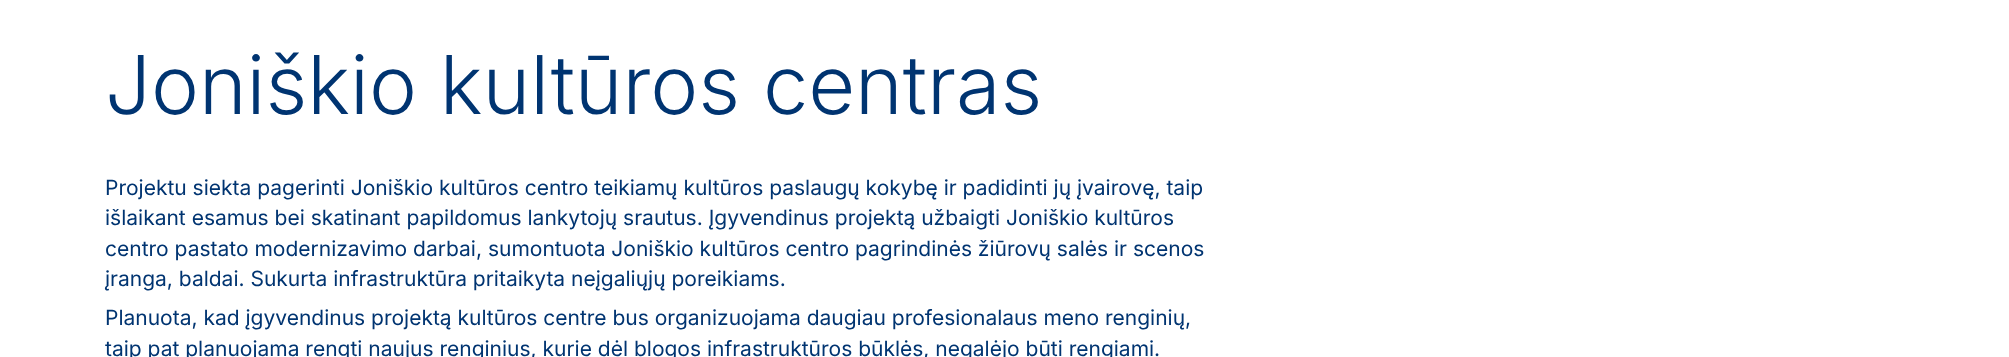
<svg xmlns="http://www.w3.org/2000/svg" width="2009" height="357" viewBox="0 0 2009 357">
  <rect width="100%" height="100%" fill="#ffffff"/>
  <text x="105" y="114" font-family="Inter" font-size="81" font-weight="300" fill="#003471">Joniškio kultūros centras</text>
  <text x="105" y="195" font-family="Inter" font-size="21" fill="#003471">Projektu siekta pagerinti Joniškio kultūros centro teikiamų kultūros paslaugų kokybę ir padidinti jų įvairovę, taip</text>
  <text x="105" y="225" font-family="Inter" font-size="21" fill="#003471">išlaikant esamus bei skatinant papildomus lankytojų srautus. Įgyvendinus projektą užbaigti Joniškio kultūros</text>
  <text x="105" y="256" font-family="Inter" font-size="21" fill="#003471">centro pastato modernizavimo darbai, sumontuota Joniškio kultūros centro pagrindinės žiūrovų salės ir scenos</text>
  <text x="105" y="286" font-family="Inter" font-size="21" fill="#003471">įranga, baldai. Sukurta infrastruktūra pritaikyta neįgaliųjų poreikiams.</text>
  <text x="105" y="325" font-family="Inter" font-size="21" fill="#003471">Planuota, kad įgyvendinus projektą kultūros centre bus organizuojama daugiau profesionalaus meno renginių,</text>
  <text x="105" y="356" font-family="Inter" font-size="21" fill="#003471">taip pat planuojama rengti naujus renginius, kurie dėl blogos infrastruktūros būklės, negalėjo būti rengiami.</text>
</svg>
